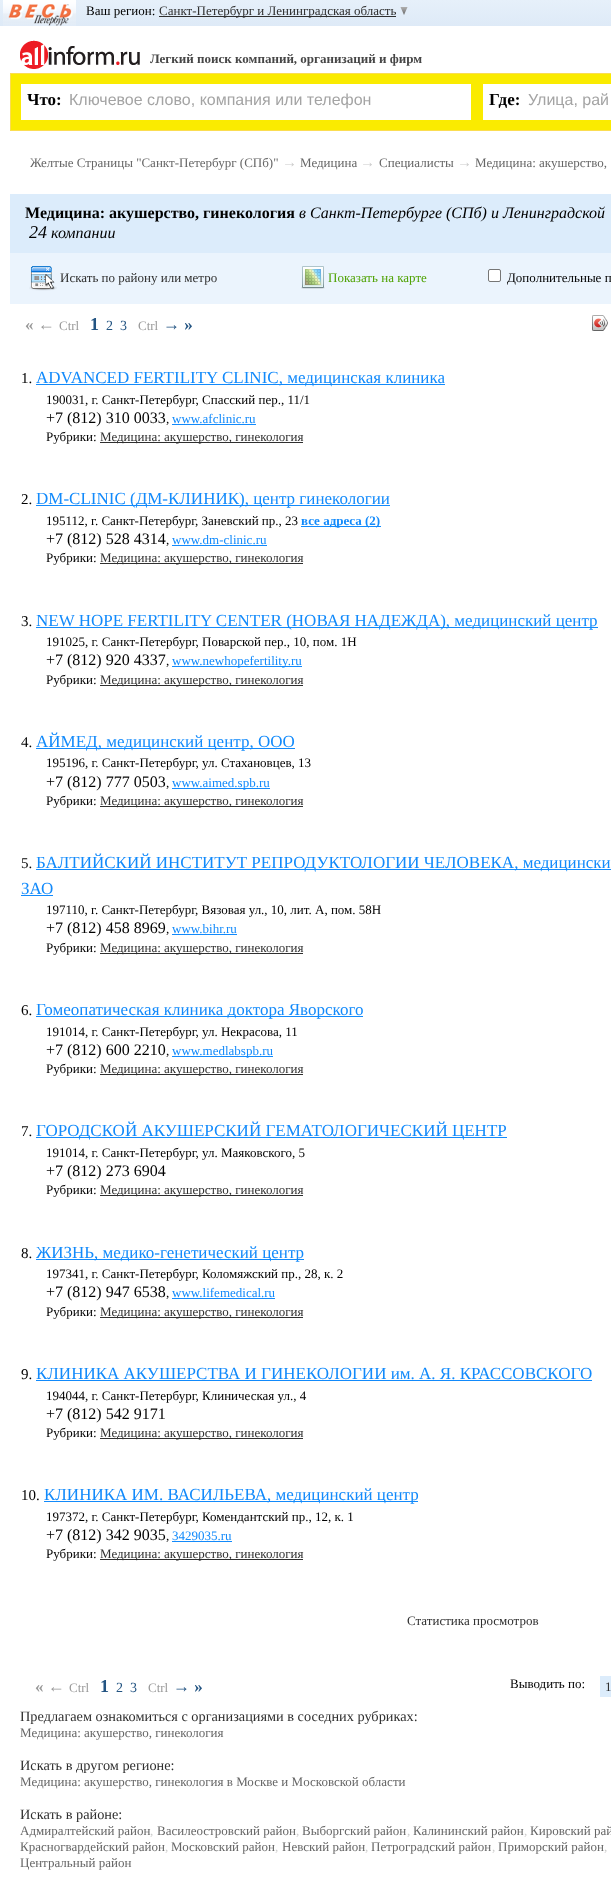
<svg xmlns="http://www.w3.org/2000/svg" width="611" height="1886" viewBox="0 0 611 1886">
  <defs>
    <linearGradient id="g1" gradientUnits="userSpaceOnUse" x1="518" y1="0" x2="518" y2="26"><stop offset="0" stop-color="#e6f0fa"/><stop offset="1" stop-color="#deeaf7"/></linearGradient>
  </defs>
  <rect width="100%" height="100%" fill="#ffffff"/>
  <rect x="0" y="0" width="611" height="26" fill="url(#g1)"/>
  <image x="3" y="0" width="73" height="26" href="img1.png"/>
  <text x="86" y="15" font-family="Liberation Serif" font-size="13" fill="#000000">Ваш регион:</text>
  <rect x="159" y="16" width="237" height="1" fill="#2f2f2f"/>
  <text x="159" y="15" font-family="Liberation Serif" font-size="13" fill="#2f2f2f">Санкт-Петербург и Ленинградская область</text>
  <image x="400" y="7" width="8" height="8" href="img2.png"/>
  <image x="20" y="40" width="120" height="29" href="img3.png"/>
  <text x="150" y="63" font-family="Liberation Serif" font-size="13" font-weight="bold" fill="#464646">Легкий поиск компаний, организаций и фирм</text>
  <rect x="10.5" y="73.5" width="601" height="57" fill="#faeb00" stroke="#fbdd51"/>
  <rect x="21" y="84" width="450" height="36" fill="#ffffff"/>
  <text x="27" y="105" font-family="Liberation Serif" font-size="17" font-weight="bold" fill="#000000">Что:</text>
  <text x="69" y="105" font-family="Liberation Sans" font-size="16" fill="#a4a4a4">Ключевое слово, компания или телефон</text>
  <rect x="483" y="84" width="128" height="36" fill="#ffffff"/>
  <text x="489" y="105" font-family="Liberation Serif" font-size="17" font-weight="bold" fill="#000000">Где:</text>
  <text x="528" y="105" font-family="Liberation Sans" font-size="16" fill="#a4a4a4">Улица, рай</text>
  <text x="30" y="167" font-family="Liberation Serif" font-size="13" fill="#666666">Желтые Страницы "Санкт-Петербург (СПб)"</text>
  <text x="282" y="167" font-family="Liberation Serif" font-size="15" fill="#cccccc">→</text>
  <text x="300" y="167" font-family="Liberation Serif" font-size="13" fill="#666666">Медицина</text>
  <text x="360" y="167" font-family="Liberation Serif" font-size="15" fill="#cccccc">→</text>
  <text x="379" y="167" font-family="Liberation Serif" font-size="13" fill="#666666">Специалисты</text>
  <text x="457" y="167" font-family="Liberation Serif" font-size="15" fill="#cccccc">→</text>
  <text x="475" y="167" font-family="Liberation Serif" font-size="13" fill="#666666">Медицина: акушерство,</text>
  <rect x="10" y="253" width="601" height="51" fill="#ebf4fd"/>
  <rect x="10" y="194" width="601" height="59" fill="#dcecfb"/>
  <text x="25" y="218" font-family="Liberation Serif" font-size="16" font-weight="bold" fill="#000000">Медицина: акушерство, гинекология</text>
  <text x="299" y="218" font-family="Liberation Serif" font-size="16" font-style="italic" fill="#000000">в Санкт-Петербурге (СПб) и Ленинградской</text>
  <text x="29" y="238" font-family="Liberation Serif" font-size="18" font-style="italic" fill="#000000">24</text>
  <text x="51" y="238" font-family="Liberation Serif" font-size="16" font-style="italic" fill="#000000">компании</text>
  <image x="29" y="266" width="28" height="25" href="img4.png"/>
  <text x="60" y="282" font-family="Liberation Serif" font-size="13" fill="#2f2f2f">Искать по району или метро</text>
  <image x="301" y="266" width="24" height="23" href="img5.png"/>
  <text x="328" y="282" font-family="Liberation Serif" font-size="13" fill="#4fa204">Показать на карте</text>
  <rect x="488.5" y="269.5" width="12" height="12" rx="1.5" fill="#ffffff" stroke="#767676"/>
  <text x="507" y="282" font-family="Liberation Serif" font-size="13" fill="#000000">Дополнительные п</text>
  <text x="25" y="330" font-family="Liberation Serif" font-size="17" font-weight="bold" fill="#999999">« ←</text>
  <text x="59" y="330" font-family="Liberation Serif" font-size="13" fill="#999999">Ctrl</text>
  <text x="90" y="330" font-family="Liberation Serif" font-size="18" font-weight="bold" fill="#235482">1</text>
  <text x="106" y="330" font-family="Liberation Serif" font-size="14" fill="#235482">2</text>
  <text x="120" y="330" font-family="Liberation Serif" font-size="14" fill="#235482">3</text>
  <text x="138" y="330" font-family="Liberation Serif" font-size="13" fill="#999999">Ctrl</text>
  <text x="163" y="330" font-family="Liberation Serif" font-size="17" font-weight="bold" fill="#235482">→ »</text>
  <image x="592" y="315" width="16" height="16" href="img6.png"/>
  <image x="592" y="315" width="16" height="16" href="img7.png"/>
  <text x="21" y="383" font-family="Liberation Serif" font-size="15" fill="#000000">1.</text>
  <rect x="36" y="384" width="409" height="1" fill="#128afb"/>
  <text x="36" y="383" font-family="Liberation Serif" font-size="17" fill="#128afb">ADVANCED FERTILITY CLINIC, медицинская клиника</text>
  <text x="46" y="404" font-family="Liberation Serif" font-size="13" fill="#000000">190031, г. Санкт-Петербург, Спасский пер., 11/1</text>
  <text x="46" y="423" font-family="Liberation Serif" font-size="16" fill="#000000">+7 (812) 310 0033</text>
  <text x="166" y="423" font-family="Liberation Serif" font-size="13" fill="#000000">,</text>
  <text x="172" y="423" font-family="Liberation Serif" font-size="13" fill="#128afb">www.afclinic.ru</text>
  <rect x="172" y="424" width="84" height="1" fill="#128afb"/>
  <text x="46" y="441" font-family="Liberation Serif" font-size="13" fill="#000000">Рубрики:</text>
  <rect x="100" y="442" width="203" height="1" fill="#2f2f2f"/>
  <text x="100" y="441" font-family="Liberation Serif" font-size="13" fill="#2f2f2f">Медицина: акушерство, гинекология</text>
  <text x="21" y="504" font-family="Liberation Serif" font-size="15" fill="#000000">2.</text>
  <rect x="36" y="505" width="354" height="1" fill="#128afb"/>
  <text x="36" y="504" font-family="Liberation Serif" font-size="17" fill="#128afb">DM-CLINIC (ДМ-КЛИНИК), центр гинекологии</text>
  <text x="46" y="525" font-family="Liberation Serif" font-size="13" fill="#000000">195112, г. Санкт-Петербург, Заневский пр., 23</text>
  <rect x="301" y="526" width="80" height="1" fill="#128afb"/>
  <text x="301" y="525" font-family="Liberation Serif" font-size="13" font-weight="bold" fill="#128afb">все адреса (2)</text>
  <text x="46" y="544" font-family="Liberation Serif" font-size="16" fill="#000000">+7 (812) 528 4314</text>
  <text x="166" y="544" font-family="Liberation Serif" font-size="13" fill="#000000">,</text>
  <text x="172" y="544" font-family="Liberation Serif" font-size="13" fill="#128afb">www.dm-clinic.ru</text>
  <rect x="172" y="545" width="95" height="1" fill="#128afb"/>
  <text x="46" y="562" font-family="Liberation Serif" font-size="13" fill="#000000">Рубрики:</text>
  <rect x="100" y="563" width="203" height="1" fill="#2f2f2f"/>
  <text x="100" y="562" font-family="Liberation Serif" font-size="13" fill="#2f2f2f">Медицина: акушерство, гинекология</text>
  <text x="21" y="626" font-family="Liberation Serif" font-size="15" fill="#000000">3.</text>
  <rect x="36" y="627" width="562" height="1" fill="#128afb"/>
  <text x="36" y="626" font-family="Liberation Serif" font-size="17" fill="#128afb">NEW HOPE FERTILITY CENTER (НОВАЯ НАДЕЖДА), медицинский центр</text>
  <text x="46" y="646" font-family="Liberation Serif" font-size="13" fill="#000000">191025, г. Санкт-Петербург, Поварской пер., 10, пом. 1Н</text>
  <text x="46" y="665" font-family="Liberation Serif" font-size="16" fill="#000000">+7 (812) 920 4337</text>
  <text x="166" y="665" font-family="Liberation Serif" font-size="13" fill="#000000">,</text>
  <rect x="172" y="666" width="130" height="1" fill="#128afb"/>
  <text x="172" y="665" font-family="Liberation Serif" font-size="13" fill="#128afb">www.newhopefertility.ru</text>
  <text x="46" y="684" font-family="Liberation Serif" font-size="13" fill="#000000">Рубрики:</text>
  <rect x="100" y="685" width="203" height="1" fill="#2f2f2f"/>
  <text x="100" y="684" font-family="Liberation Serif" font-size="13" fill="#2f2f2f">Медицина: акушерство, гинекология</text>
  <text x="21" y="747" font-family="Liberation Serif" font-size="15" fill="#000000">4.</text>
  <rect x="36" y="748" width="259" height="1" fill="#128afb"/>
  <text x="36" y="747" font-family="Liberation Serif" font-size="17" fill="#128afb">АЙМЕД, медицинский центр, ООО</text>
  <text x="46" y="767" font-family="Liberation Serif" font-size="13" fill="#000000">195196, г. Санкт-Петербург, ул. Стахановцев, 13</text>
  <text x="46" y="787" font-family="Liberation Serif" font-size="16" fill="#000000">+7 (812) 777 0503</text>
  <text x="166" y="787" font-family="Liberation Serif" font-size="13" fill="#000000">,</text>
  <rect x="172" y="788" width="98" height="1" fill="#128afb"/>
  <text x="172" y="787" font-family="Liberation Serif" font-size="13" fill="#128afb">www.aimed.spb.ru</text>
  <text x="46" y="805" font-family="Liberation Serif" font-size="13" fill="#000000">Рубрики:</text>
  <rect x="100" y="806" width="203" height="1" fill="#2f2f2f"/>
  <text x="100" y="805" font-family="Liberation Serif" font-size="13" fill="#2f2f2f">Медицина: акушерство, гинекология</text>
  <text x="21" y="868" font-family="Liberation Serif" font-size="15" fill="#000000">5.</text>
  <rect x="36" y="869" width="575" height="1" fill="#128afb"/>
  <text x="36" y="868" font-family="Liberation Serif" font-size="17" fill="#128afb">БАЛТИЙСКИЙ ИНСТИТУТ РЕПРОДУКТОЛОГИИ ЧЕЛОВЕКА, медицински</text>
  <text x="21" y="894" font-family="Liberation Serif" font-size="17" fill="#128afb">ЗАО</text>
  <rect x="21" y="895" width="32" height="1" fill="#128afb"/>
  <text x="46" y="914" font-family="Liberation Serif" font-size="13" fill="#000000">197110, г. Санкт-Петербург, Вязовая ул., 10, лит. А, пом. 58Н</text>
  <text x="46" y="933" font-family="Liberation Serif" font-size="16" fill="#000000">+7 (812) 458 8969</text>
  <text x="166" y="933" font-family="Liberation Serif" font-size="13" fill="#000000">,</text>
  <text x="172" y="933" font-family="Liberation Serif" font-size="13" fill="#128afb">www.bihr.ru</text>
  <rect x="172" y="934" width="65" height="1" fill="#128afb"/>
  <text x="46" y="952" font-family="Liberation Serif" font-size="13" fill="#000000">Рубрики:</text>
  <rect x="100" y="953" width="203" height="1" fill="#2f2f2f"/>
  <text x="100" y="952" font-family="Liberation Serif" font-size="13" fill="#2f2f2f">Медицина: акушерство, гинекология</text>
  <text x="21" y="1015" font-family="Liberation Serif" font-size="15" fill="#000000">6.</text>
  <rect x="36" y="1016" width="327" height="1" fill="#128afb"/>
  <text x="36" y="1015" font-family="Liberation Serif" font-size="17" fill="#128afb">Гомеопатическая клиника доктора Яворского</text>
  <text x="46" y="1036" font-family="Liberation Serif" font-size="13" fill="#000000">191014, г. Санкт-Петербург, ул. Некрасова, 11</text>
  <text x="46" y="1055" font-family="Liberation Serif" font-size="16" fill="#000000">+7 (812) 600 2210</text>
  <text x="166" y="1055" font-family="Liberation Serif" font-size="13" fill="#000000">,</text>
  <rect x="172" y="1056" width="101" height="1" fill="#128afb"/>
  <text x="172" y="1055" font-family="Liberation Serif" font-size="13" fill="#128afb">www.medlabspb.ru</text>
  <text x="46" y="1073" font-family="Liberation Serif" font-size="13" fill="#000000">Рубрики:</text>
  <rect x="100" y="1074" width="203" height="1" fill="#2f2f2f"/>
  <text x="100" y="1073" font-family="Liberation Serif" font-size="13" fill="#2f2f2f">Медицина: акушерство, гинекология</text>
  <text x="21" y="1136" font-family="Liberation Serif" font-size="15" fill="#000000">7.</text>
  <rect x="36" y="1137" width="471" height="1" fill="#128afb"/>
  <text x="36" y="1136" font-family="Liberation Serif" font-size="17" fill="#128afb">ГОРОДСКОЙ АКУШЕРСКИЙ ГЕМАТОЛОГИЧЕСКИЙ ЦЕНТР</text>
  <text x="46" y="1157" font-family="Liberation Serif" font-size="13" fill="#000000">191014, г. Санкт-Петербург, ул. Маяковского, 5</text>
  <text x="46" y="1176" font-family="Liberation Serif" font-size="16" fill="#000000">+7 (812) 273 6904</text>
  <text x="46" y="1194" font-family="Liberation Serif" font-size="13" fill="#000000">Рубрики:</text>
  <rect x="100" y="1195" width="203" height="1" fill="#2f2f2f"/>
  <text x="100" y="1194" font-family="Liberation Serif" font-size="13" fill="#2f2f2f">Медицина: акушерство, гинекология</text>
  <text x="21" y="1258" font-family="Liberation Serif" font-size="15" fill="#000000">8.</text>
  <rect x="36" y="1259" width="268" height="1" fill="#128afb"/>
  <text x="36" y="1258" font-family="Liberation Serif" font-size="17" fill="#128afb">ЖИЗНЬ, медико-генетический центр</text>
  <text x="46" y="1278" font-family="Liberation Serif" font-size="13" fill="#000000">197341, г. Санкт-Петербург, Коломяжский пр., 28, к. 2</text>
  <text x="46" y="1297" font-family="Liberation Serif" font-size="16" fill="#000000">+7 (812) 947 6538</text>
  <text x="166" y="1297" font-family="Liberation Serif" font-size="13" fill="#000000">,</text>
  <text x="172" y="1297" font-family="Liberation Serif" font-size="13" fill="#128afb">www.lifemedical.ru</text>
  <rect x="172" y="1298" width="103" height="1" fill="#128afb"/>
  <text x="46" y="1316" font-family="Liberation Serif" font-size="13" fill="#000000">Рубрики:</text>
  <rect x="100" y="1317" width="203" height="1" fill="#2f2f2f"/>
  <text x="100" y="1316" font-family="Liberation Serif" font-size="13" fill="#2f2f2f">Медицина: акушерство, гинекология</text>
  <text x="21" y="1379" font-family="Liberation Serif" font-size="15" fill="#000000">9.</text>
  <text x="36" y="1379" font-family="Liberation Serif" font-size="17" fill="#128afb">КЛИНИКА АКУШЕРСТВА И ГИНЕКОЛОГИИ им. А. Я. КРАССОВСКОГО</text>
  <rect x="36" y="1380" width="556" height="1" fill="#128afb"/>
  <text x="46" y="1400" font-family="Liberation Serif" font-size="13" fill="#000000">194044, г. Санкт-Петербург, Клиническая ул., 4</text>
  <text x="46" y="1419" font-family="Liberation Serif" font-size="16" fill="#000000">+7 (812) 542 9171</text>
  <text x="46" y="1437" font-family="Liberation Serif" font-size="13" fill="#000000">Рубрики:</text>
  <rect x="100" y="1438" width="203" height="1" fill="#2f2f2f"/>
  <text x="100" y="1437" font-family="Liberation Serif" font-size="13" fill="#2f2f2f">Медицина: акушерство, гинекология</text>
  <text x="21" y="1500" font-family="Liberation Serif" font-size="15" fill="#000000">10.</text>
  <rect x="44" y="1501" width="374" height="1" fill="#128afb"/>
  <text x="44" y="1500" font-family="Liberation Serif" font-size="17" fill="#128afb">КЛИНИКА ИМ. ВАСИЛЬЕВА, медицинский центр</text>
  <text x="46" y="1521" font-family="Liberation Serif" font-size="13" fill="#000000">197372, г. Санкт-Петербург, Комендантский пр., 12, к. 1</text>
  <text x="46" y="1540" font-family="Liberation Serif" font-size="16" fill="#000000">+7 (812) 342 9035</text>
  <text x="166" y="1540" font-family="Liberation Serif" font-size="13" fill="#000000">,</text>
  <text x="172" y="1540" font-family="Liberation Serif" font-size="13" fill="#128afb">3429035.ru</text>
  <rect x="172" y="1541" width="60" height="1" fill="#128afb"/>
  <text x="46" y="1558" font-family="Liberation Serif" font-size="13" fill="#000000">Рубрики:</text>
  <rect x="100" y="1559" width="203" height="1" fill="#2f2f2f"/>
  <text x="100" y="1558" font-family="Liberation Serif" font-size="13" fill="#2f2f2f">Медицина: акушерство, гинекология</text>
  <text x="407" y="1625" font-family="Liberation Serif" font-size="13" fill="#2f2f2f">Статистика просмотров</text>
  <text x="35" y="1692" font-family="Liberation Serif" font-size="17" font-weight="bold" fill="#999999">« ←</text>
  <text x="69" y="1692" font-family="Liberation Serif" font-size="13" fill="#999999">Ctrl</text>
  <text x="100" y="1692" font-family="Liberation Serif" font-size="18" font-weight="bold" fill="#235482">1</text>
  <text x="116" y="1692" font-family="Liberation Serif" font-size="14" fill="#235482">2</text>
  <text x="130" y="1692" font-family="Liberation Serif" font-size="14" fill="#235482">3</text>
  <text x="148" y="1692" font-family="Liberation Serif" font-size="13" fill="#999999">Ctrl</text>
  <text x="173" y="1692" font-family="Liberation Serif" font-size="17" font-weight="bold" fill="#235482">→ »</text>
  <text x="510" y="1688" font-family="Liberation Serif" font-size="13" fill="#000000">Выводить по:</text>
  <rect x="600" y="1676" width="11" height="21" fill="#dcecfb"/>
  <text x="605" y="1691" font-family="Liberation Serif" font-size="13" fill="#2f2f2f">1</text>
  <text x="20" y="1721" font-family="Liberation Serif" font-size="14.3" fill="#2f2f2f">Предлагаем ознакомиться с организациями в соседних рубриках:</text>
  <text x="20" y="1737" font-family="Liberation Serif" font-size="13" fill="#666666">Медицина: акушерство, гинекология</text>
  <text x="20" y="1770" font-family="Liberation Serif" font-size="14.3" fill="#2f2f2f">Искать в другом регионе:</text>
  <text x="20" y="1786" font-family="Liberation Serif" font-size="13" fill="#666666">Медицина: акушерство, гинекология в Москве и Mосковской области</text>
  <text x="20" y="1819" font-family="Liberation Serif" font-size="14.3" fill="#2f2f2f">Искать в районе:</text>
  <text x="20" y="1835" font-family="Liberation Serif" font-size="13" fill="#666666">Адмиралтейский район</text>
  <text x="150" y="1835" font-family="Liberation Serif" font-size="13" fill="#cccccc">,</text>
  <text x="157" y="1835" font-family="Liberation Serif" font-size="13" fill="#666666">Василеостровский район</text>
  <text x="296" y="1835" font-family="Liberation Serif" font-size="13" fill="#cccccc">,</text>
  <text x="302" y="1835" font-family="Liberation Serif" font-size="13" fill="#666666">Выборгский район</text>
  <text x="407" y="1835" font-family="Liberation Serif" font-size="13" fill="#cccccc">,</text>
  <text x="413" y="1835" font-family="Liberation Serif" font-size="13" fill="#666666">Калининский район</text>
  <text x="524" y="1835" font-family="Liberation Serif" font-size="13" fill="#cccccc">,</text>
  <text x="530" y="1835" font-family="Liberation Serif" font-size="13" fill="#666666">Кировский рай</text>
  <text x="20" y="1851" font-family="Liberation Serif" font-size="13" fill="#666666">Красногвардейский район</text>
  <text x="165" y="1851" font-family="Liberation Serif" font-size="13" fill="#cccccc">,</text>
  <text x="171" y="1851" font-family="Liberation Serif" font-size="13" fill="#666666">Московский район</text>
  <text x="275" y="1851" font-family="Liberation Serif" font-size="13" fill="#cccccc">,</text>
  <text x="282" y="1851" font-family="Liberation Serif" font-size="13" fill="#666666">Невский район</text>
  <text x="365" y="1851" font-family="Liberation Serif" font-size="13" fill="#cccccc">,</text>
  <text x="371" y="1851" font-family="Liberation Serif" font-size="13" fill="#666666">Петроградский район</text>
  <text x="492" y="1851" font-family="Liberation Serif" font-size="13" fill="#cccccc">,</text>
  <text x="498" y="1851" font-family="Liberation Serif" font-size="13" fill="#666666">Приморский район</text>
  <text x="604" y="1851" font-family="Liberation Serif" font-size="13" fill="#cccccc">,</text>
  <text x="20" y="1867" font-family="Liberation Serif" font-size="13" fill="#666666">Центральный район</text>
</svg>
